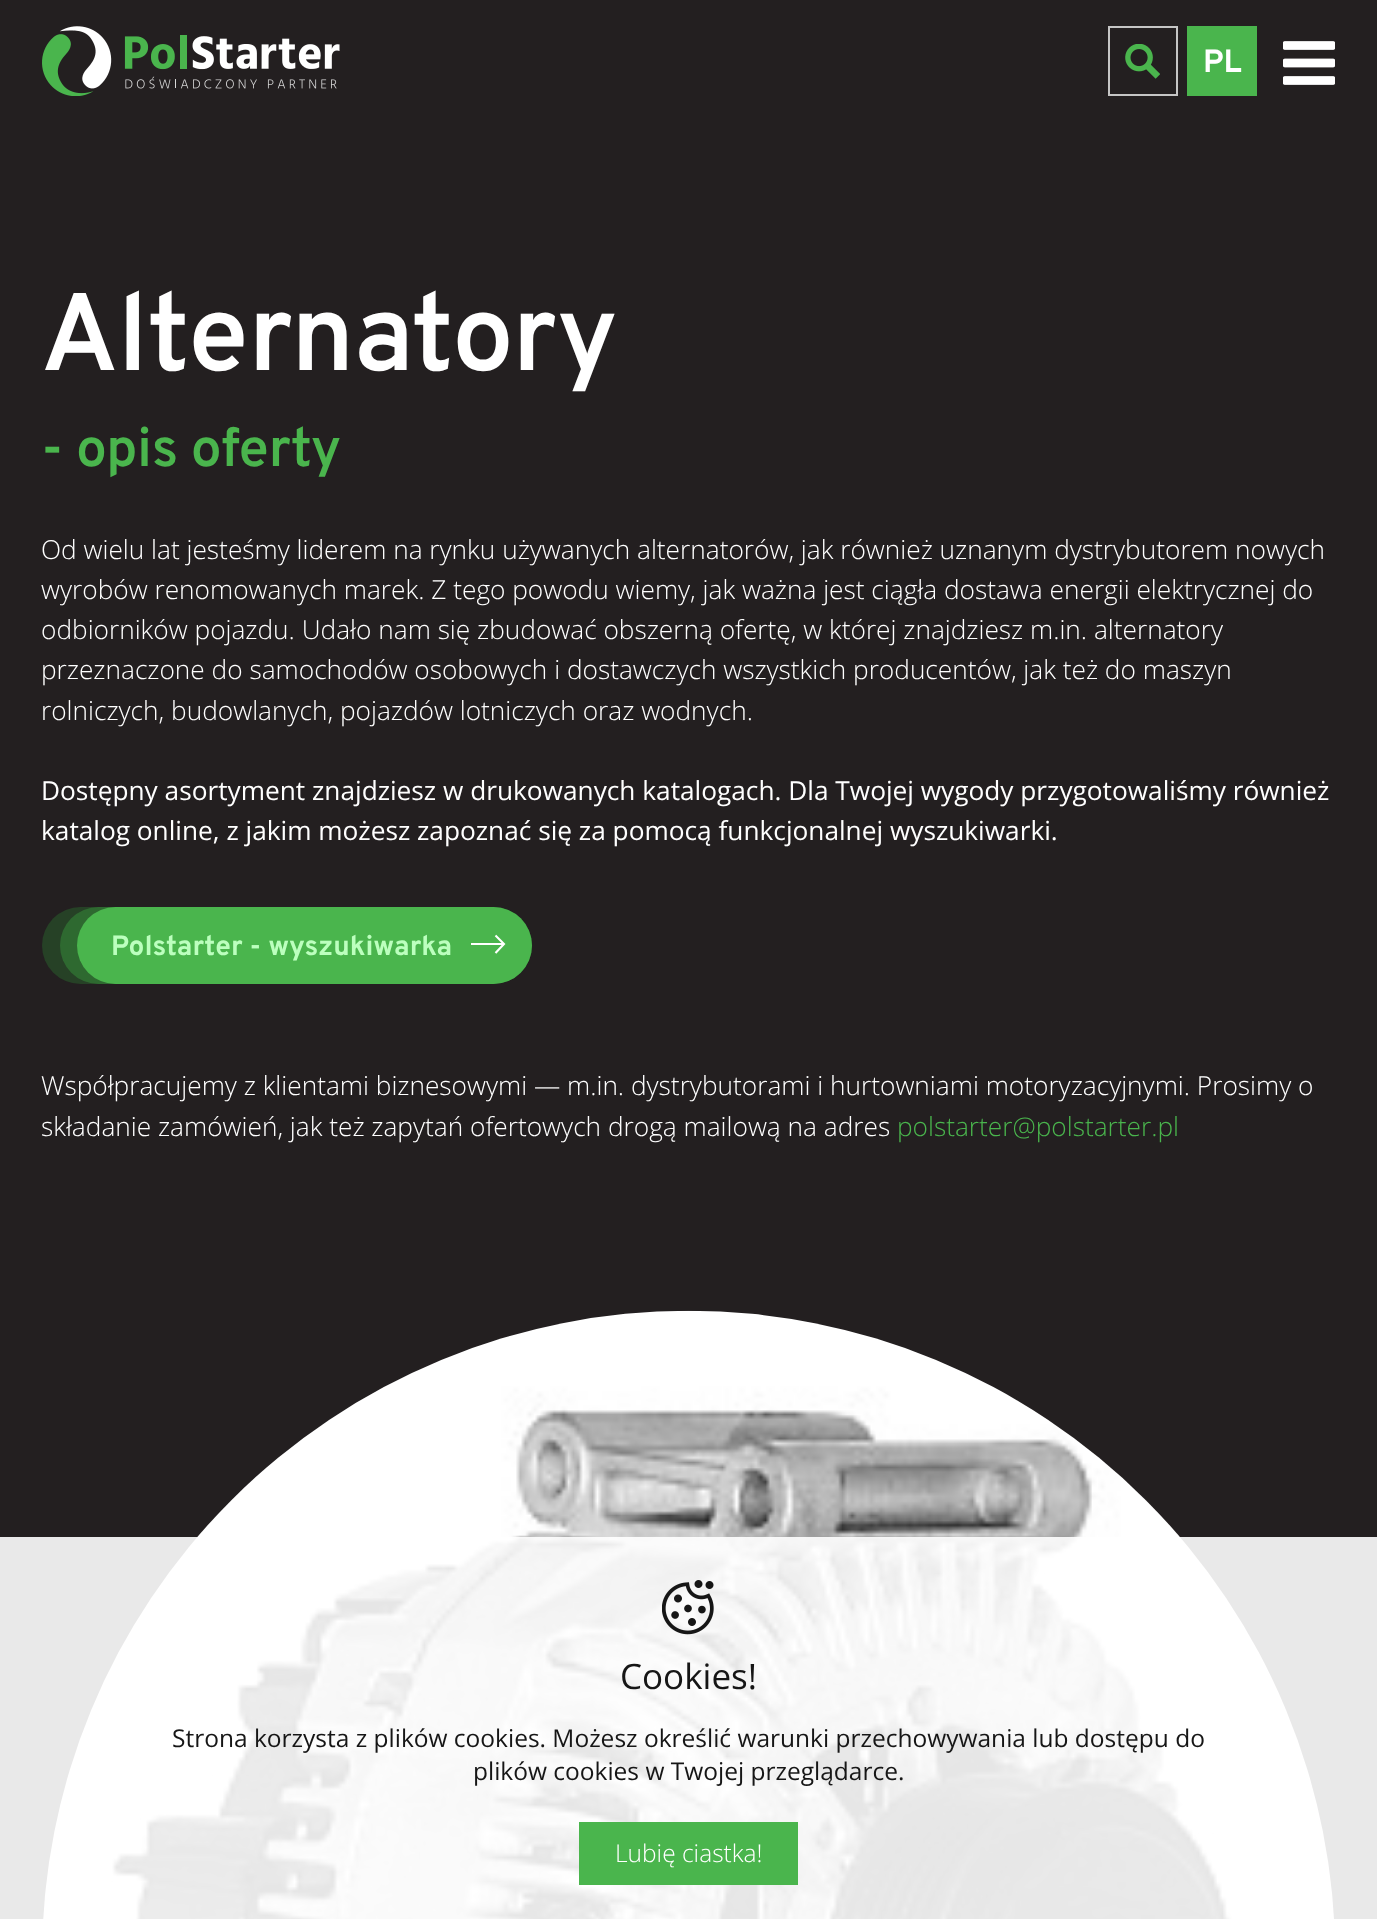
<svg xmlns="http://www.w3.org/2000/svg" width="1377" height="1919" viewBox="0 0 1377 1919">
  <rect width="100%" height="100%" fill="#231f20"/>
  <image x="42" y="26" width="298" height="70" href="img1.png"/>
  <image x="1125" y="44" width="35" height="35" href="img2.png"/>
  <rect x="1109" y="27" width="68" height="68" fill="none" stroke="#c5c5c5" stroke-width="2"/>
  <rect x="1187" y="26" width="70" height="70" fill="#4ab54d"/>
  <text x="1203" y="72" font-family="Overpass" font-size="32" font-weight="bold" fill="#ffffff">PL</text>
  <image x="1283" y="41" width="52" height="44" href="img3.png"/>
  <text x="41" y="370" font-family="Overpass" font-size="110" font-weight="600" letter-spacing="-1.1" fill="#ffffff">Alternatory</text>
  <text x="41" y="466" font-family="Overpass" font-size="55" font-weight="600" letter-spacing="-0.5" fill="#4ab54d">- opis oferty</text>
  <text x="41" y="559" font-family="Open Sans" font-size="26.25" font-weight="300" fill="#ffffff">Od wielu lat jesteśmy liderem na rynku używanych alternatorów, jak również uznanym dystrybutorem nowych</text>
  <text x="41" y="599" font-family="Open Sans" font-size="26.25" font-weight="300" fill="#ffffff">wyrobów renomowanych marek. Z tego powodu wiemy, jak ważna jest ciągła dostawa energii elektrycznej do</text>
  <text x="41" y="639" font-family="Open Sans" font-size="26.25" font-weight="300" fill="#ffffff">odbiorników pojazdu. Udało nam się zbudować obszerną ofertę, w której znajdziesz m.in. alternatory</text>
  <text x="41" y="679" font-family="Open Sans" font-size="26.25" font-weight="300" fill="#ffffff">przeznaczone do samochodów osobowych i dostawczych wszystkich producentów, jak też do maszyn</text>
  <text x="41" y="720" font-family="Open Sans" font-size="26.25" font-weight="300" fill="#ffffff">rolniczych, budowlanych, pojazdów lotniczych oraz wodnych.</text>
  <text x="41" y="800" font-family="Open Sans" font-size="26.25" fill="#ffffff">Dostępny asortyment znajdziesz w drukowanych katalogach. Dla Twojej wygody przygotowaliśmy również</text>
  <text x="41" y="840" font-family="Open Sans" font-size="26.25" fill="#ffffff">katalog online, z jakim możesz zapoznać się za pomocą funkcjonalnej wyszukiwarki.</text>
  <rect x="42" y="907" width="473" height="77" rx="38.5" fill="#264126"/>
  <rect x="60" y="907" width="472" height="77" rx="38.5" fill="#327b34" fill-opacity="0.7"/>
  <rect x="77" y="907" width="455" height="77" rx="38.5" fill="#4ab54d"/>
  <rect x="471" y="943" width="33" height="2" fill="#ffffff"/>
  <path d="M495.5 935.5L504 944L495.5 953" fill="none" stroke="#ffffff" stroke-width="2.1"/>
  <text x="111" y="955" font-family="Overpass" font-size="28" font-weight="bold" fill="#bcffbe">Polstarter - wyszukiwarka</text>
  <text x="41" y="1095" font-family="Open Sans" font-size="26.25" font-weight="300" fill="#ffffff">Współpracujemy z klientami biznesowymi — m.in. dystrybutorami i hurtowniami motoryzacyjnymi. Prosimy o</text>
  <text x="41" y="1136" font-family="Open Sans" font-size="26.25" font-weight="300" fill="#ffffff">składanie zamówień, jak też zapytań ofertowych drogą mailową na adres</text>
  <text x="897" y="1136" font-family="Open Sans" font-size="26.25" font-weight="300" fill="#4ab54d">polstarter@polstarter.pl</text>
  <image x="43" y="1310" width="1291" height="609" href="img4.png"/>
  <rect x="0" y="1537" width="1377" height="382" fill="#ffffff" fill-opacity="0.9"/>
  <image x="662" y="1580" width="52" height="55" href="img5.png"/>
  <text x="620" y="1689" font-family="Open Sans" font-size="35" fill="#161616">Cookies!</text>
  <text x="172" y="1747" font-family="Open Sans" font-size="24.5" fill="#161616">Strona korzysta z plików cookies. Możesz określić warunki przechowywania lub dostępu do</text>
  <text x="473" y="1780" font-family="Open Sans" font-size="24.5" fill="#161616">plików cookies w Twojej przeglądarce.</text>
  <rect x="579" y="1822" width="219" height="63" fill="#4ab54d"/>
  <text x="615" y="1862" font-family="Open Sans" font-size="24.5" font-weight="300" fill="#ffffff">Lubię ciastka!</text>
</svg>
